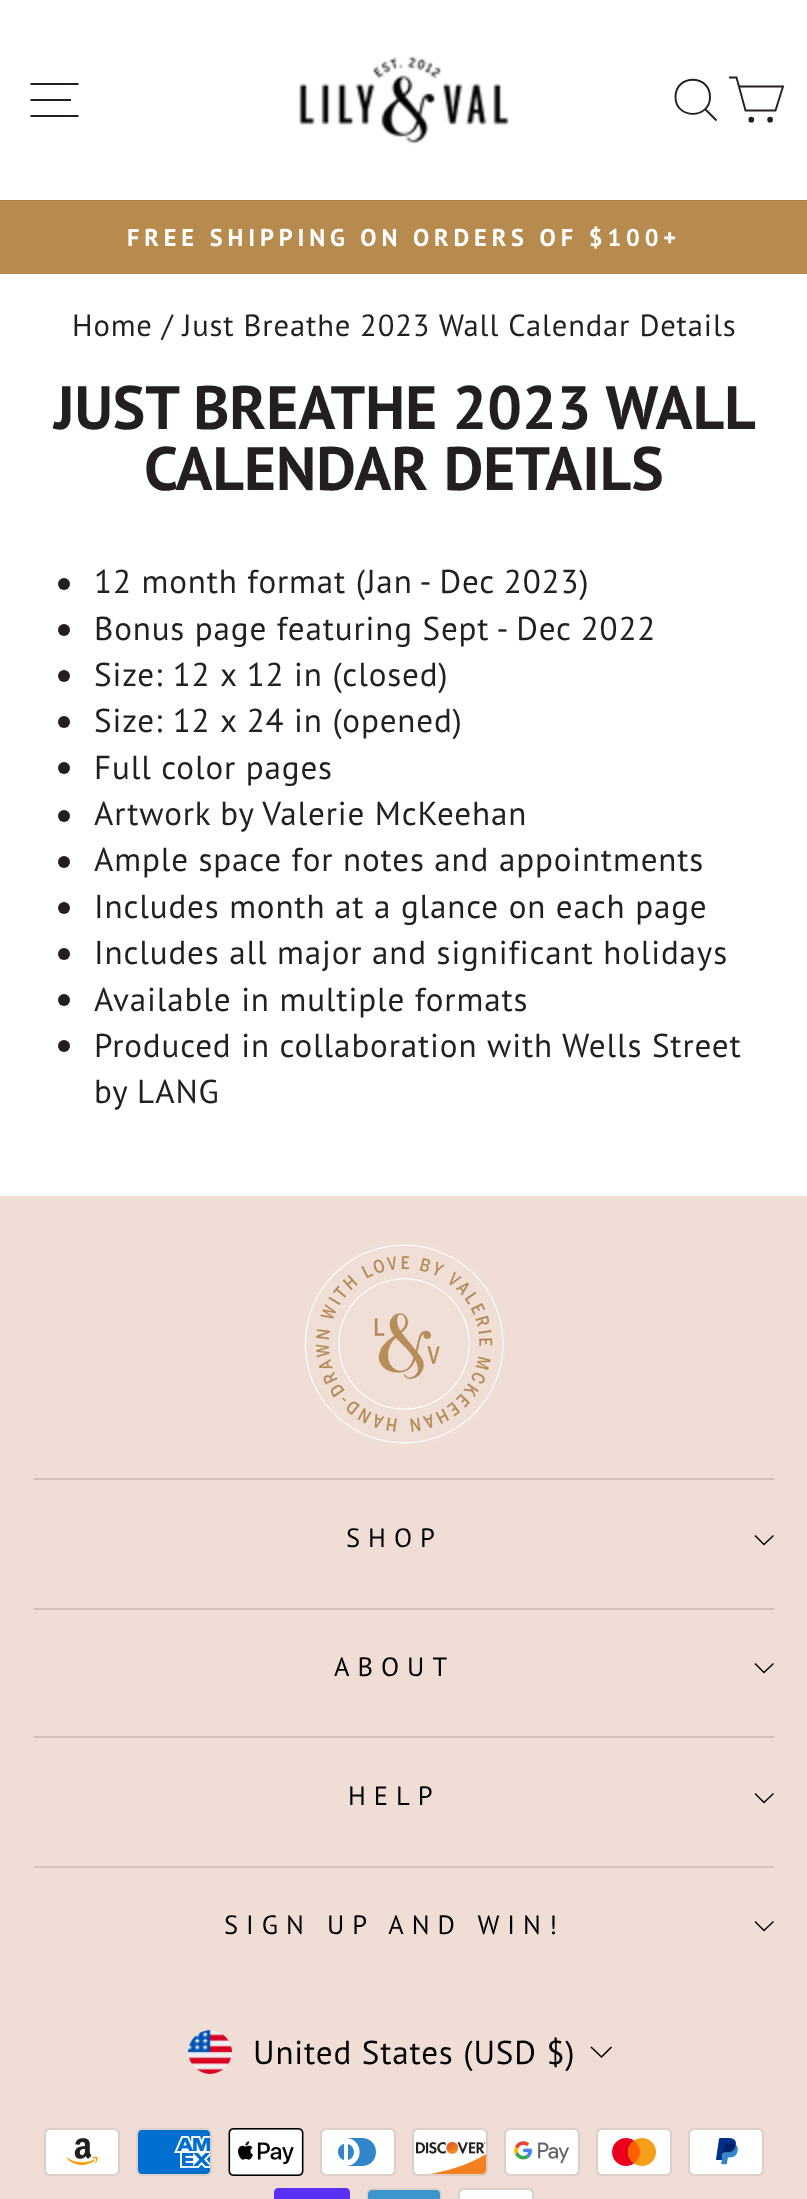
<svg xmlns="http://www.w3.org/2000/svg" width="807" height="2199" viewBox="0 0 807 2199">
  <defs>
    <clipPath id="clip1"><rect x="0" y="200" width="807" height="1"/></clipPath>
    <filter id="blur1" x="-50%" y="-200%" width="200%" height="500%"><feGaussianBlur stdDeviation="1"/></filter>
  </defs>
  <rect width="100%" height="100%" fill="#ffffff"/>
  <rect x="0" y="200" width="807" height="74" fill="#b78a4e"/>
  <g clip-path="url(#clip1)">
    <rect x="0" y="0" width="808" height="200" fill="#000000" fill-opacity="0.2" filter="url(#blur1)"/>
  </g>
  <path d="M30.5 84H78.5M30.5 100H71M30.5 116H78.5" fill="none" stroke="#231f20" stroke-width="1.9"/>
  <image x="299" y="56" width="210" height="89" href="img1.png"/>
  <path d="M710 97C710 119.5 675.5 119.5 675.5 97C675.5 74 710 74 710 97ZM716.5 120.5L705.5 109.5" fill="none" stroke="#231f20" stroke-width="1.9"/>
  <path d="M739 86.5H783L775.5 110.5H745.5L736.5 77.5H729" fill="none" stroke="#231f20" stroke-width="1.9"/>
  <circle cx="751.3" cy="119.7" r="1.9" fill="#231f20" stroke="#231f20" stroke-width="1.9"/>
  <circle cx="770.1" cy="119.7" r="1.9" fill="#231f20" stroke="#231f20" stroke-width="1.9"/>
  <text x="127" y="246" font-family="PT Sans" font-size="24.3" font-weight="bold" letter-spacing="4.85" fill="#ffffff">FREE SHIPPING ON ORDERS OF $100+</text>
  <text x="72" y="336" font-family="PT Sans" font-size="30.6" letter-spacing="0.85" fill="#231f20">Home / Just Breathe 2023 Wall Calendar Details</text>
  <text x="54" y="429" font-family="PT Sans" font-size="61.25" font-weight="bold" fill="#231f20">JUST BREATHE 2023 WALL</text>
  <text x="144" y="490" font-family="PT Sans" font-size="61.25" font-weight="bold" fill="#231f20">CALENDAR DETAILS</text>
  <circle cx="64" cy="584" r="6" fill="#231f20"/>
  <text x="94" y="593" font-family="PT Sans" font-size="33.1" letter-spacing="0.85" fill="#231f20">12 month format (Jan - Dec 2023)</text>
  <circle cx="64" cy="630" r="6" fill="#231f20"/>
  <text x="94" y="640" font-family="PT Sans" font-size="33.1" letter-spacing="0.85" fill="#231f20">Bonus page featuring Sept - Dec 2022</text>
  <circle cx="64" cy="676" r="6" fill="#231f20"/>
  <text x="94" y="686" font-family="PT Sans" font-size="33.1" letter-spacing="0.85" fill="#231f20">Size: 12 x 12 in (closed)</text>
  <circle cx="64" cy="722" r="6" fill="#231f20"/>
  <text x="94" y="732" font-family="PT Sans" font-size="33.1" letter-spacing="0.85" fill="#231f20">Size: 12 x 24 in (opened)</text>
  <circle cx="64" cy="768" r="6" fill="#231f20"/>
  <text x="94" y="779" font-family="PT Sans" font-size="33.1" letter-spacing="0.85" fill="#231f20">Full color pages</text>
  <circle cx="64" cy="816" r="6" fill="#231f20"/>
  <text x="94" y="825" font-family="PT Sans" font-size="33.1" letter-spacing="0.85" fill="#231f20">Artwork by Valerie McKeehan</text>
  <circle cx="64" cy="862" r="6" fill="#231f20"/>
  <text x="94" y="871" font-family="PT Sans" font-size="33.1" letter-spacing="0.85" fill="#231f20">Ample space for notes and appointments</text>
  <circle cx="64" cy="908" r="6" fill="#231f20"/>
  <text x="94" y="918" font-family="PT Sans" font-size="33.1" letter-spacing="0.85" fill="#231f20">Includes month at a glance on each page</text>
  <circle cx="64" cy="954" r="6" fill="#231f20"/>
  <text x="94" y="964" font-family="PT Sans" font-size="33.1" letter-spacing="0.85" fill="#231f20">Includes all major and significant holidays</text>
  <circle cx="64" cy="1000" r="6" fill="#231f20"/>
  <text x="94" y="1011" font-family="PT Sans" font-size="33.1" letter-spacing="0.85" fill="#231f20">Available in multiple formats</text>
  <circle cx="64" cy="1046" r="6" fill="#231f20"/>
  <text x="94" y="1057" font-family="PT Sans" font-size="33.1" letter-spacing="0.85" fill="#231f20">Produced in collaboration with Wells Street</text>
  <text x="94" y="1103" font-family="PT Sans" font-size="33.1" letter-spacing="0.85" fill="#231f20">by LANG</text>
  <rect x="0" y="1196" width="807" height="1003" fill="#f0ded6"/>
  <image x="303" y="1242" width="203" height="204" href="img2.png"/>
  <rect x="34" y="1478" width="740" height="2" fill="#d3c3bc"/>
  <text x="346" y="1547" font-family="PT Sans" font-size="26.5" letter-spacing="8" fill="#000000">SHOP</text>
  <path d="M755 1535.5L764 1544.5L773.5 1535.5" fill="none" stroke="#000000" stroke-width="1.4"/>
  <rect x="34" y="1608" width="740" height="2" fill="#d3c3bc"/>
  <text x="334" y="1676" font-family="PT Sans" font-size="26.5" letter-spacing="8" fill="#000000">ABOUT</text>
  <path d="M755 1663.5L764 1672.5L773.5 1663.5" fill="none" stroke="#000000" stroke-width="1.4"/>
  <rect x="34" y="1736" width="740" height="2" fill="#d3c3bc"/>
  <text x="348" y="1805" font-family="PT Sans" font-size="26.5" letter-spacing="8" fill="#000000">HELP</text>
  <path d="M755 1793.5L764 1802.5L773.5 1793.5" fill="none" stroke="#000000" stroke-width="1.4"/>
  <rect x="34" y="1866" width="740" height="2" fill="#d3c3bc"/>
  <text x="224" y="1934" font-family="PT Sans" font-size="26.5" letter-spacing="8" fill="#000000">SIGN UP AND WIN!</text>
  <path d="M755 1921.5L764 1930.5L773.5 1921.5" fill="none" stroke="#000000" stroke-width="1.4"/>
  <image x="188" y="2030" width="44" height="44" href="img3.png"/>
  <text x="253" y="2064" font-family="PT Sans" font-size="33.1" letter-spacing="0.85" fill="#000000">United States (USD $)</text>
  <path d="M591 2047L601.5 2057L611.5 2047" fill="none" stroke="#000000" stroke-width="1.6"/>
  <image x="44" y="2128" width="76" height="48" href="img4.png"/>
  <image x="136" y="2128" width="76" height="48" href="img5.png"/>
  <image x="228" y="2128" width="76" height="48" href="img6.png"/>
  <image x="320" y="2128" width="76" height="48" href="img7.png"/>
  <image x="412" y="2128" width="76" height="48" href="img8.png"/>
  <image x="504" y="2128" width="76" height="48" href="img9.png"/>
  <image x="596" y="2128" width="76" height="48" href="img10.png"/>
  <image x="688" y="2128" width="76" height="48" href="img11.png"/>
  <image x="274" y="2188" width="76" height="11" href="img12.png"/>
  <image x="366" y="2188" width="76" height="11" href="img13.png"/>
  <image x="458" y="2188" width="76" height="11" href="img14.png"/>
</svg>
